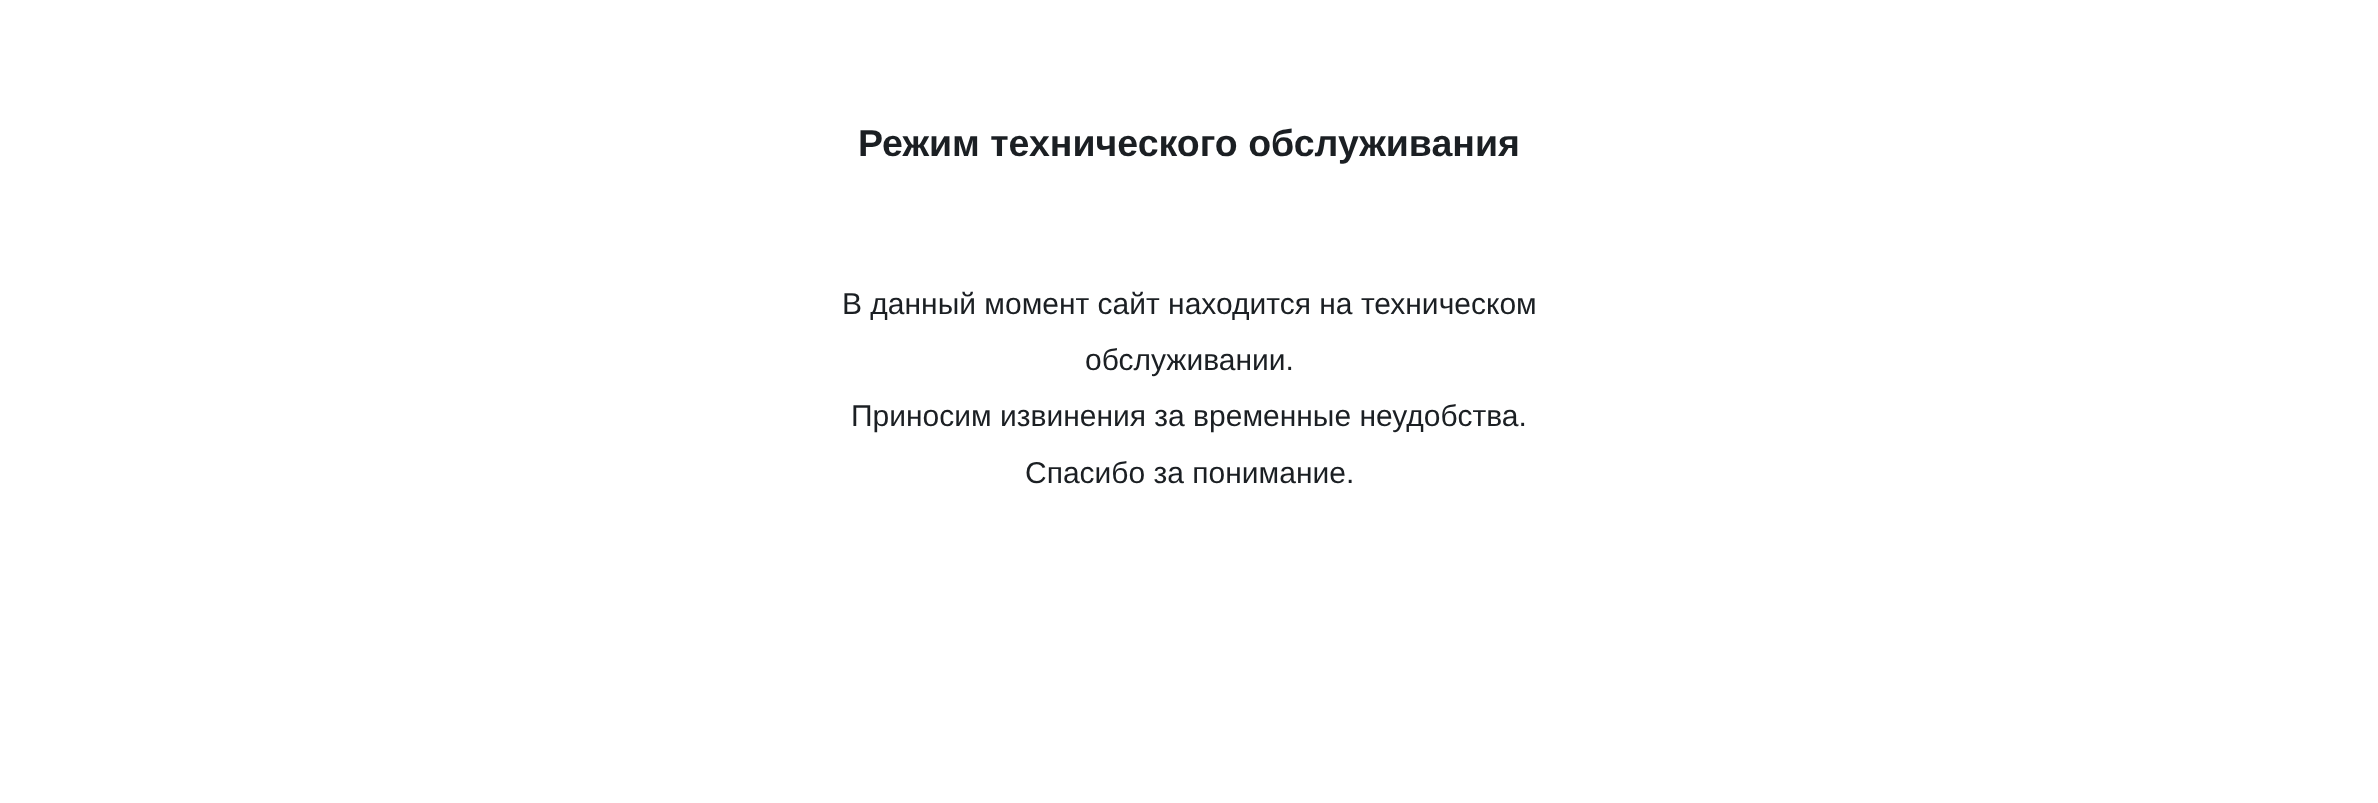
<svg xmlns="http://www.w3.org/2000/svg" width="2378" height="803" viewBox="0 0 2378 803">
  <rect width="100%" height="100%" fill="#ffffff"/>
  <text x="858" y="156" font-family="Liberation Sans" font-size="37.5" font-weight="bold" fill="#1b1f23">Режим технического обслуживания</text>
  <text x="842" y="314" font-family="Liberation Sans" font-size="30" fill="#1b1f23">В данный момент сайт находится на техническом</text>
  <text x="1085" y="370" font-family="Liberation Sans" font-size="30" fill="#1b1f23">обслуживании.</text>
  <text x="851" y="426" font-family="Liberation Sans" font-size="30" fill="#1b1f23">Приносим извинения за временные неудобства.</text>
  <text x="1025" y="483" font-family="Liberation Sans" font-size="30" fill="#1b1f23">Спасибо за понимание.</text>
</svg>
